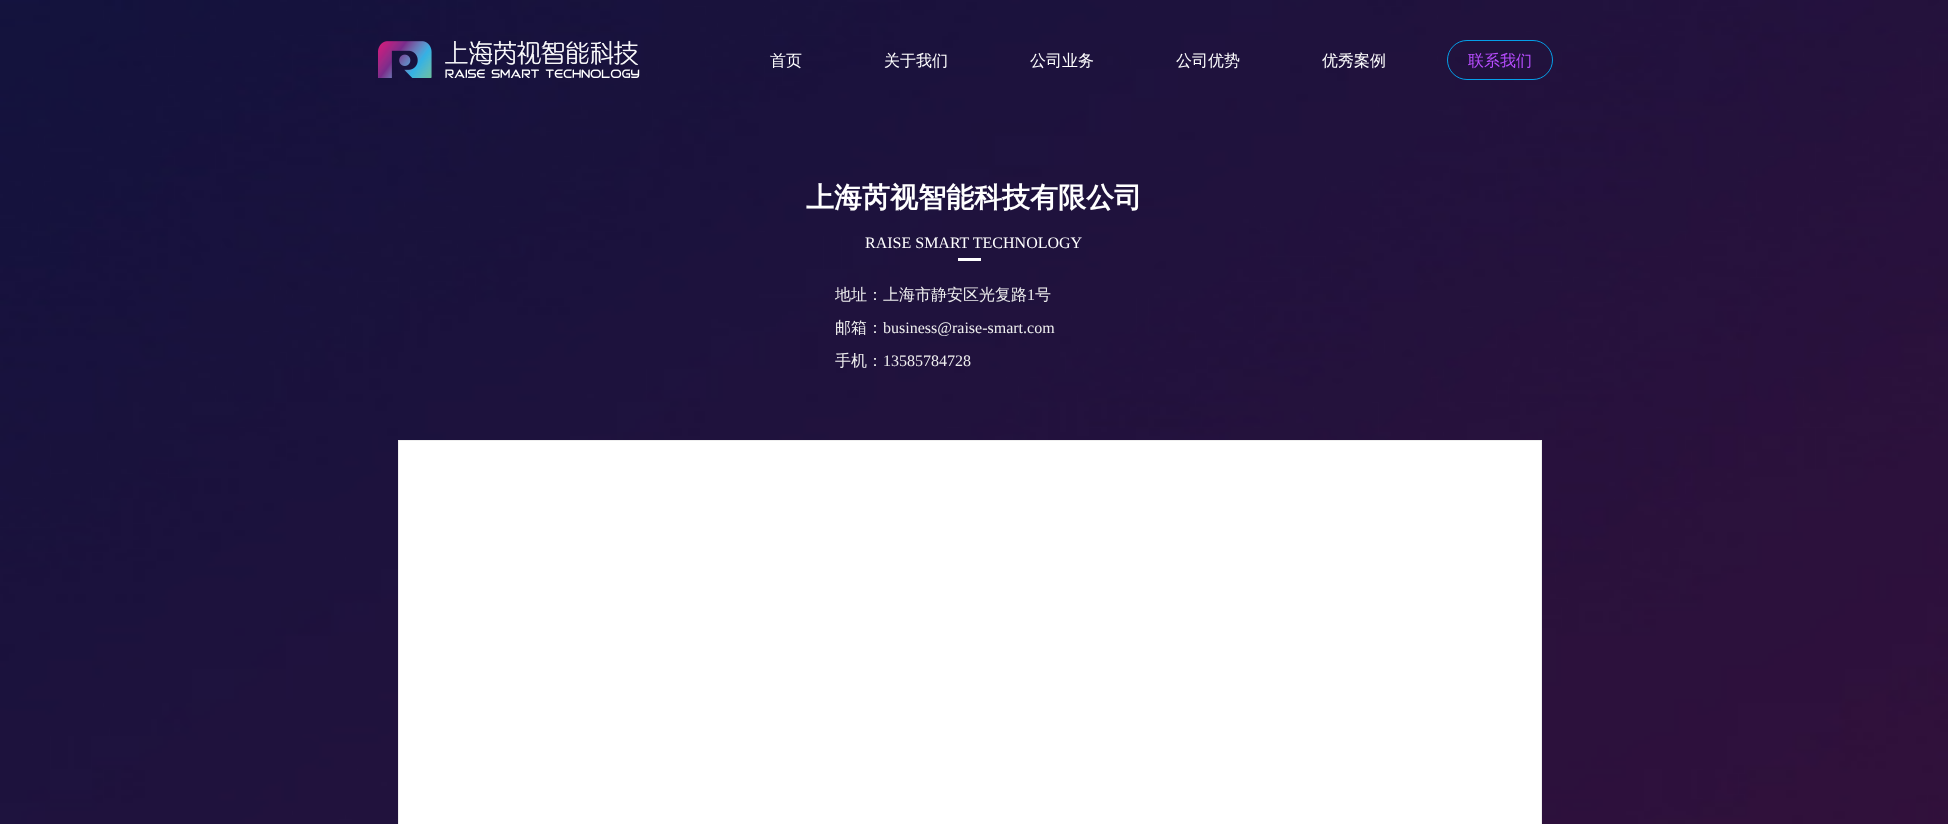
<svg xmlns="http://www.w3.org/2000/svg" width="1948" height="824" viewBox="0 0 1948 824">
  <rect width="100%" height="100%" fill="#ffffff"/>
  <image x="0" y="0" width="1948" height="824" href="img1.png"/>
  <image x="378" y="40" width="262" height="38" href="img2.png"/>
  <text x="770" y="66" font-family="WenQuanYi Zen Hei" font-size="16" font-weight="500" fill="#ffffff">首页</text>
  <text x="884" y="66" font-family="WenQuanYi Zen Hei" font-size="16" font-weight="500" fill="#ffffff">关于我们</text>
  <text x="1030" y="66" font-family="WenQuanYi Zen Hei" font-size="16" font-weight="500" fill="#ffffff">公司业务</text>
  <text x="1176" y="66" font-family="WenQuanYi Zen Hei" font-size="16" font-weight="500" fill="#ffffff">公司优势</text>
  <text x="1322" y="66" font-family="WenQuanYi Zen Hei" font-size="16" font-weight="500" fill="#ffffff">优秀案例</text>
  <rect x="1447.5" y="40.5" width="105" height="39" rx="19.5" fill="none" stroke="#059fe9"/>
  <text x="1468" y="66" font-family="WenQuanYi Zen Hei" font-size="16" font-weight="500" fill="#b84dff">联系我们</text>
  <text x="806" y="207" font-family="WenQuanYi Zen Hei" font-size="28" font-weight="bold" fill="#ffffff">上海芮视智能科技有限公司</text>
  <text x="865" y="248" font-family="Liberation Serif" font-size="16" fill="#ffffff">RAISE SMART TECHNOLOGY</text>
  <rect x="958" y="258" width="23" height="3" fill="#ffffff"/>
  <text x="835" y="300" font-family="WenQuanYi Zen Hei" font-size="16" font-weight="500" fill="#eeeeee">地址：上海市静安区光复路</text>
  <text x="1027" y="300" font-family="Liberation Serif" font-size="16" fill="#eeeeee">1</text>
  <text x="1035" y="300" font-family="WenQuanYi Zen Hei" font-size="16" font-weight="500" fill="#eeeeee">号</text>
  <text x="835" y="333" font-family="WenQuanYi Zen Hei" font-size="16" font-weight="500" fill="#eeeeee">邮箱：</text>
  <text x="883" y="333" font-family="Liberation Serif" font-size="16" fill="#eeeeee">business@raise-smart.com</text>
  <text x="835" y="366" font-family="WenQuanYi Zen Hei" font-size="16" font-weight="500" fill="#eeeeee">手机：</text>
  <text x="883" y="366" font-family="Liberation Serif" font-size="16" fill="#eeeeee">13585784728</text>
  <rect x="398.5" y="440.5" width="1143" height="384" fill="#ffffff" stroke="#eeeeee"/>
</svg>
